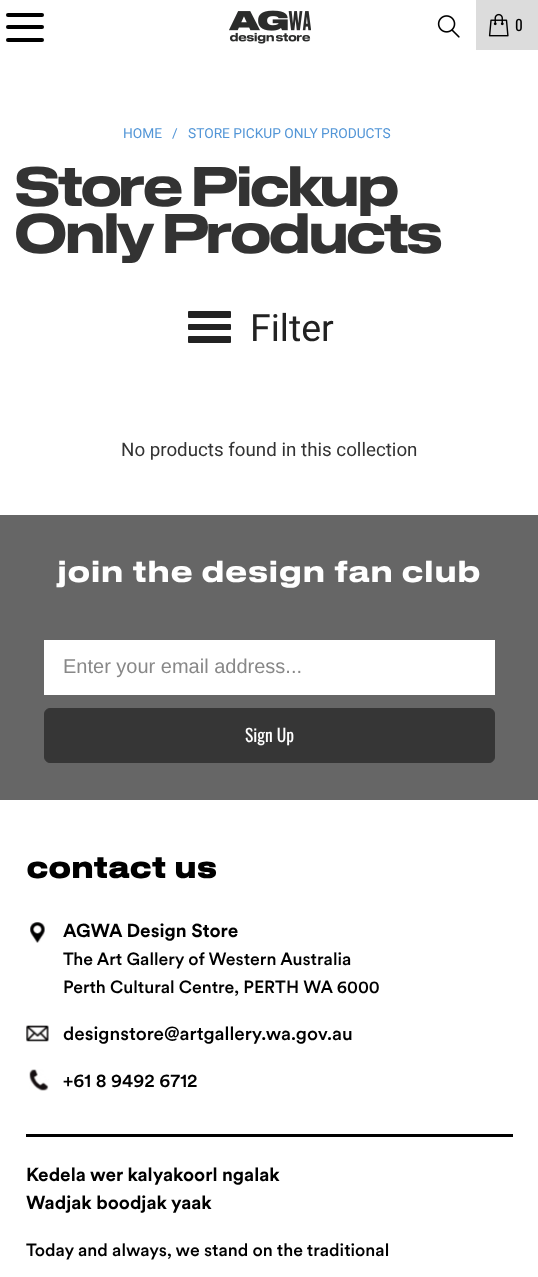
<svg xmlns="http://www.w3.org/2000/svg" width="538" height="1277" viewBox="0 0 538 1277">
  <rect width="100%" height="100%" fill="#ffffff"/>
  <rect x="6" y="13" width="38" height="4" rx="2" fill="#000000"/>
  <rect x="6" y="25" width="38" height="4" rx="2" fill="#000000"/>
  <rect x="6" y="38" width="38" height="4" rx="2" fill="#000000"/>
  <image x="229" y="10" width="82" height="34" href="img1.png"/>
  <image x="437" y="15" width="23" height="23" href="img2.png"/>
  <rect x="476" y="0" width="62" height="50" fill="#dcdcdc"/>
  <image x="488" y="13" width="21" height="24" href="img3.png"/>
  <text x="515" y="31" font-family="Oswald" font-size="15" letter-spacing="1" fill="#000000">0</text>
  <text x="123" y="138" font-family="Roboto" font-size="13.75" fill="#5396d7">HOME</text>
  <text x="172" y="138" font-family="Roboto" font-size="13.75" fill="#5396d7">/</text>
  <text x="188" y="138" font-family="Roboto" font-size="13.75" fill="#5396d7">STORE PICKUP ONLY PRODUCTS</text>
  <text x="13" y="206" font-family="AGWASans" font-size="52.5" font-weight="500" letter-spacing="-5" fill="#333333">Store Pickup</text>
  <text x="13" y="253" font-family="AGWASans" font-size="52.5" font-weight="500" letter-spacing="-5" fill="#333333">Only Products</text>
  <rect x="188" y="324" width="43" height="6" rx="1" fill="#222222"/>
  <rect x="188" y="311" width="43" height="7" rx="1" fill="#222222"/>
  <rect x="188" y="336" width="43" height="7" rx="1" fill="#222222"/>
  <text x="250" y="341" font-family="Roboto" font-size="37.5" fill="#222222">Filter</text>
  <text x="121" y="456" font-family="Roboto" font-size="18.75" fill="#333333">No products found in this collection</text>
  <rect x="0" y="515" width="538" height="285" fill="#666666"/>
  <text x="57" y="582" font-family="AGWASans" font-size="28.1" font-weight="500" fill="#ffffff">join the design fan club</text>
  <rect x="44" y="640" width="451" height="55" fill="#ffffff"/>
  <text x="63" y="673" font-family="Liberation Sans" font-size="20" fill="#888888">Enter your email address...</text>
  <rect x="44.5" y="708.5" width="450" height="54" rx="5.5" fill="#363636" stroke="#363636"/>
  <text x="245" y="742" font-family="Oswald" font-size="17.5" fill="#ffffff">Sign Up</text>
  <rect x="26" y="1134" width="487" height="3" fill="#000000"/>
  <text x="26" y="878" font-family="AGWASans" font-size="27.5" font-weight="bold" fill="#000000">contact us</text>
  <image x="30" y="922" width="15" height="21" href="img4.png"/>
  <text x="63" y="937" font-family="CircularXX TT" font-size="18.75" font-weight="bold" fill="#000000">AGWA Design Store</text>
  <text x="63" y="965" font-family="CircularXX TT" font-size="17.5" font-weight="500" fill="#000000">The Art Gallery of Western Australia</text>
  <text x="63" y="993" font-family="CircularXX TT" font-size="17.5" font-weight="500" fill="#000000">Perth Cultural Centre, PERTH WA 6000</text>
  <image x="26" y="1025" width="23" height="17" href="img5.png"/>
  <text x="63" y="1040" font-family="CircularXX TT" font-size="18.75" font-weight="500" fill="#000000">designstore@artgallery.wa.gov.au</text>
  <image x="29" y="1069" width="20" height="22" href="img6.png"/>
  <text x="63" y="1087" font-family="CircularXX TT" font-size="18.75" font-weight="500" fill="#000000">+61 8 9492 6712</text>
  <text x="26" y="1181" font-family="CircularXX TT" font-size="18.75" font-weight="bold" fill="#000000">Kedela wer kalyakoorl ngalak</text>
  <text x="26" y="1209" font-family="CircularXX TT" font-size="18.75" font-weight="bold" fill="#000000">Wadjak boodjak yaak</text>
  <text x="26" y="1256" font-family="CircularXX TT" font-size="17.5" font-weight="500" fill="#000000">Today and always, we stand on the traditional</text>
</svg>
